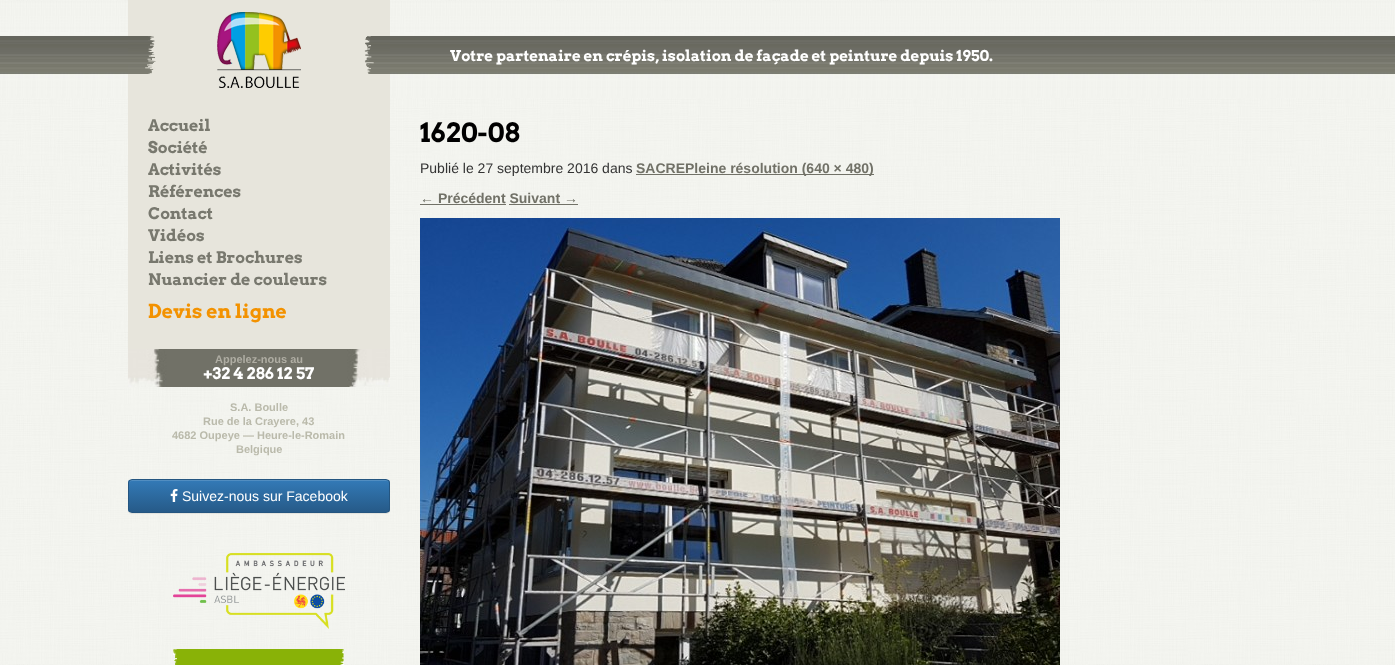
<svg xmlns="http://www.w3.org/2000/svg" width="1395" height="665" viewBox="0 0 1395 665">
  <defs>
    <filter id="blur1" x="-50%" y="-200%" width="200%" height="500%"><feGaussianBlur stdDeviation="0.5"/></filter>
    <clipPath id="clip1"><rect x="128" y="479" width="262" height="34" rx="4"/></clipPath>
    <linearGradient id="g1" gradientUnits="userSpaceOnUse" x1="259" y1="480" x2="259" y2="512"><stop offset="0" stop-color="#337ab7"/><stop offset="1" stop-color="#265a88"/></linearGradient>
  </defs>
  <rect width="100%" height="100%" fill="#ffffff"/>
  <image x="0" y="0" width="1395" height="665" href="img1.png"/>
  <image x="0" y="1" width="1395" height="97" href="img2.png"/>
  <rect x="128" y="0" width="262" height="349" fill="#e7e5dc"/>
  <image x="128" y="36" width="28" height="38" href="img3.png"/>
  <image x="217" y="12" width="84" height="76" href="img4.png"/>
  <image x="364" y="36" width="26" height="38" href="img5.png"/>
  <text x="450" y="61" font-family="Arvo" font-size="15" font-weight="bold" fill="#ffffff">Votre partenaire en crépis, isolation de façade et peinture depuis 1950.</text>
  <text x="148" y="131" font-family="Arvo" font-size="16" font-weight="bold" fill="#78786e">Accueil</text>
  <text x="148" y="153" font-family="Arvo" font-size="16" font-weight="bold" fill="#78786e">Société</text>
  <text x="148" y="175" font-family="Arvo" font-size="16" font-weight="bold" fill="#78786e">Activités</text>
  <text x="148" y="197" font-family="Arvo" font-size="16" font-weight="bold" fill="#78786e">Références</text>
  <text x="148" y="219" font-family="Arvo" font-size="16" font-weight="bold" fill="#78786e">Contact</text>
  <text x="148" y="241" font-family="Arvo" font-size="16" font-weight="bold" fill="#78786e">Vidéos</text>
  <text x="148" y="263" font-family="Arvo" font-size="16" font-weight="bold" fill="#78786e">Liens et Brochures</text>
  <text x="148" y="285" font-family="Arvo" font-size="16" font-weight="bold" fill="#78786e">Nuancier de couleurs</text>
  <text x="148" y="318" font-family="Arvo" font-size="19.25" font-weight="bold" fill="#f39200">Devis en ligne</text>
  <image x="128" y="349" width="262" height="38" href="img6.png"/>
  <text x="215" y="363" font-family="Liberation Sans" font-size="11" font-weight="bold" fill="#afada3">Appelez-nous au</text>
  <text x="203" y="379" font-family="Arvo" font-size="16" font-weight="bold" fill="#ffffff">+32 4 286 12 57</text>
  <text x="230" y="411" font-family="Liberation Sans" font-size="11" font-weight="bold" fill="#babaab">S.A. Boulle</text>
  <text x="203" y="425" font-family="Liberation Sans" font-size="11" font-weight="bold" fill="#babaab">Rue de la Crayere, 43</text>
  <text x="172" y="439" font-family="Liberation Sans" font-size="11" font-weight="bold" fill="#babaab">4682 Oupeye — Heure-le-Romain</text>
  <text x="236" y="453" font-family="Liberation Sans" font-size="11" font-weight="bold" fill="#babaab">Belgique</text>
  <rect x="128" y="480" width="262" height="34" rx="4" fill="#000000" fill-opacity="0.07" filter="url(#blur1)"/>
  <g clip-path="url(#clip1)">
    <rect x="128" y="480" width="262" height="32" fill="url(#g1)"/>
  </g>
  <path d="M132 481H387L389 482V484V483C389 481 388 480 386 480H132C130 480 129 481 129 483V484C129 482 130 481 132 481Z" fill="#528ec1"/>
  <rect x="128.5" y="479.5" width="261" height="33" rx="3.5" fill="none" stroke="#245580"/>
  <image x="170" y="489" width="8" height="13" href="img7.png"/>
  <text x="182" y="501" font-family="Liberation Sans" font-size="14" fill="#ffffff">Suivez-nous sur Facebook</text>
  <image x="173" y="553" width="172" height="76" href="img8.png"/>
  <image x="173" y="649" width="171" height="16" href="img9.png"/>
  <text x="420" y="142" font-family="Arvo" font-size="26.5" font-weight="bold" fill="#000000">1620-08</text>
  <text x="420" y="173" font-family="Liberation Sans" font-size="14" fill="#333333">Publié le 27 septembre 2016 dans</text>
  <rect x="636" y="174" width="238" height="1" fill="#717167"/>
  <text x="636" y="173" font-family="Liberation Sans" font-size="14" font-weight="bold" fill="#717167">SACREPleine résolution (640 × 480)</text>
  <text x="420" y="203" font-family="Liberation Sans" font-size="14" font-weight="bold" fill="#717167">← Précédent Suivant →</text>
  <rect x="420" y="204" width="86" height="1" fill="#717167"/>
  <rect x="509" y="204" width="69" height="1" fill="#717167"/>
  <image x="420" y="218" width="640" height="447" href="img10.png"/>
</svg>
